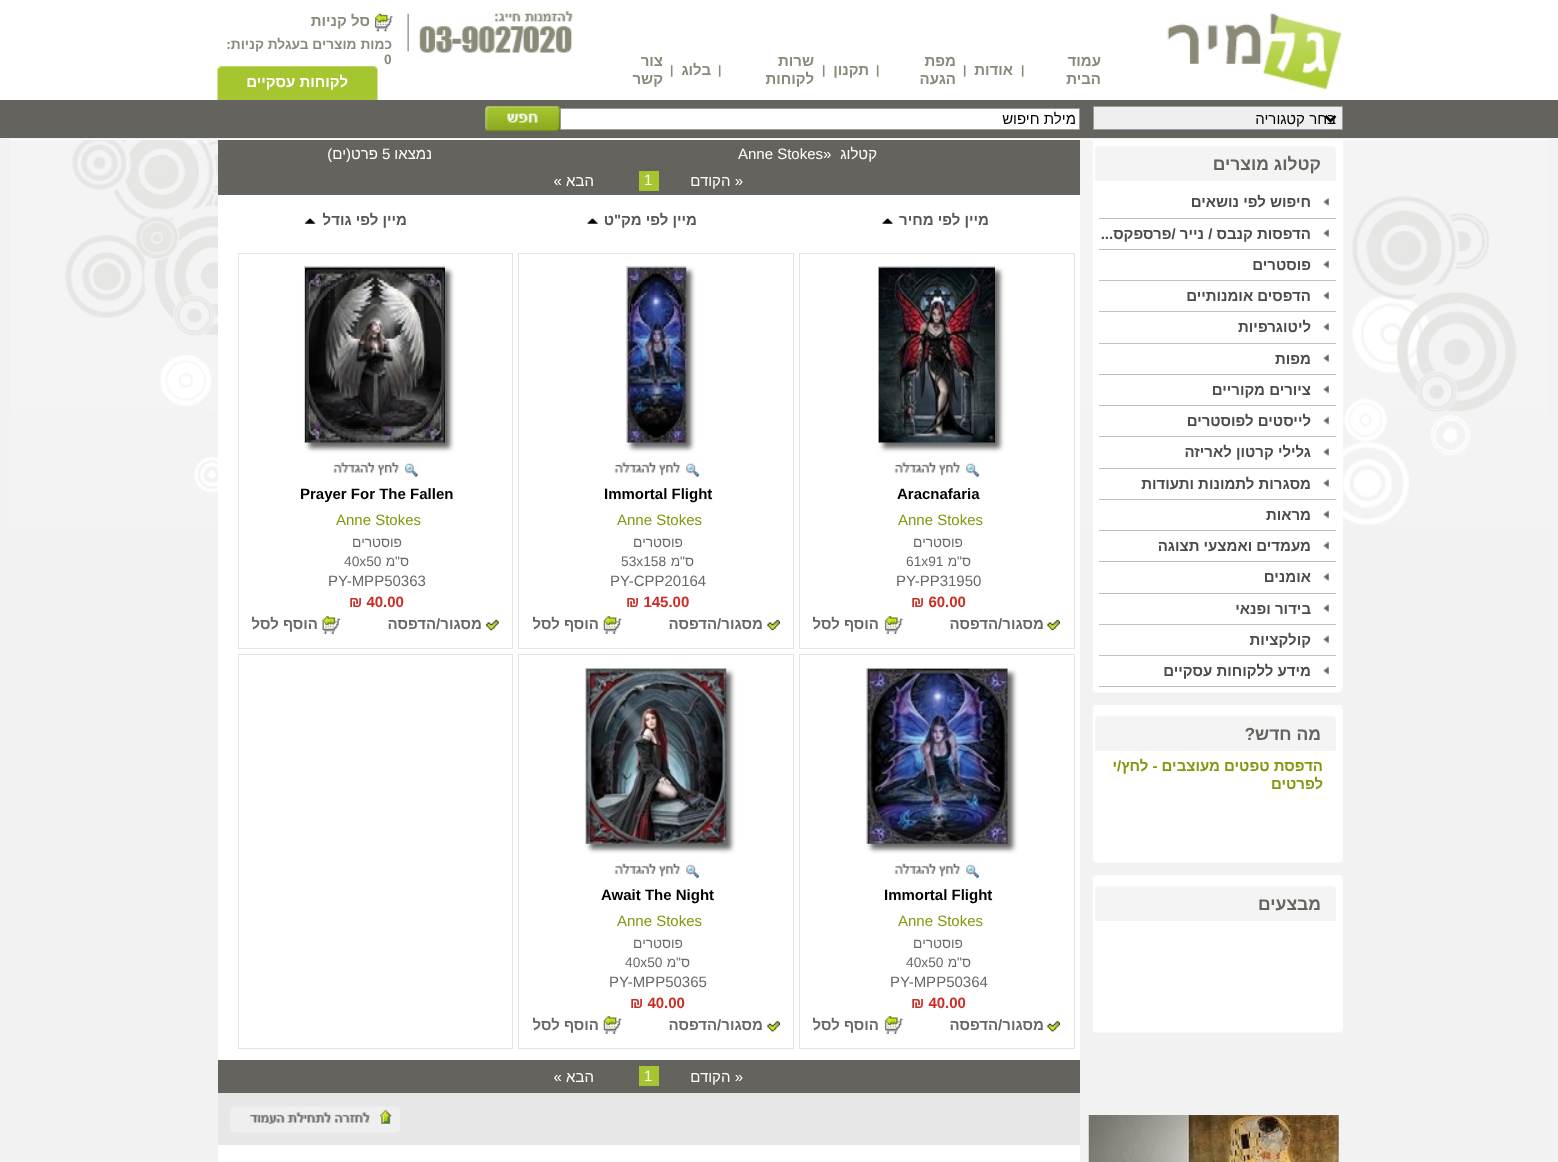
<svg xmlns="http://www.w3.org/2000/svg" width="1558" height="1162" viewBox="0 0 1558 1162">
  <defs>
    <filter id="blur1" x="-50%" y="-200%" width="200%" height="500%"><feGaussianBlur stdDeviation="2.5"/></filter>
  </defs>
  <rect width="100%" height="100%" fill="#f2f2f2"/>
  <rect x="0" y="0" width="1558" height="100" fill="#ffffff"/>
  <image x="1167" y="13" width="175" height="76" href="img1.png"/>
  <text x="1101" y="66" font-family="Liberation Sans" font-size="15" font-weight="bold" direction="rtl" fill="#898a7a">עמוד</text>
  <text x="1101" y="84" font-family="Liberation Sans" font-size="15" font-weight="bold" direction="rtl" fill="#898a7a">הבית</text>
  <text x="1021" y="74" font-family="Liberation Sans" font-size="12" font-weight="bold" fill="#898a7a">|</text>
  <text x="1013" y="75" font-family="Liberation Sans" font-size="15" font-weight="bold" direction="rtl" fill="#898a7a">אודות</text>
  <text x="963" y="74" font-family="Liberation Sans" font-size="12" font-weight="bold" fill="#898a7a">|</text>
  <text x="956" y="66" font-family="Liberation Sans" font-size="15" font-weight="bold" direction="rtl" fill="#898a7a">מפת</text>
  <text x="956" y="84" font-family="Liberation Sans" font-size="15" font-weight="bold" direction="rtl" fill="#898a7a">הגעה</text>
  <text x="876" y="74" font-family="Liberation Sans" font-size="12" font-weight="bold" fill="#898a7a">|</text>
  <text x="869" y="75" font-family="Liberation Sans" font-size="15" font-weight="bold" direction="rtl" fill="#898a7a">תקנון</text>
  <text x="822" y="74" font-family="Liberation Sans" font-size="12" font-weight="bold" fill="#898a7a">|</text>
  <text x="814" y="66" font-family="Liberation Sans" font-size="15" font-weight="bold" direction="rtl" fill="#898a7a">שרות</text>
  <text x="814" y="84" font-family="Liberation Sans" font-size="15" font-weight="bold" direction="rtl" fill="#898a7a">לקוחות</text>
  <text x="718" y="74" font-family="Liberation Sans" font-size="12" font-weight="bold" fill="#898a7a">|</text>
  <text x="711" y="75" font-family="Liberation Sans" font-size="15" font-weight="bold" direction="rtl" fill="#898a7a">בלוג</text>
  <text x="670" y="74" font-family="Liberation Sans" font-size="12" font-weight="bold" fill="#898a7a">|</text>
  <text x="663" y="66" font-family="Liberation Sans" font-size="15" font-weight="bold" direction="rtl" fill="#898a7a">צור</text>
  <text x="663" y="84" font-family="Liberation Sans" font-size="15" font-weight="bold" direction="rtl" fill="#898a7a">קשר</text>
  <image x="418" y="10" width="155" height="43" href="img2.png"/>
  <image x="407" y="13" width="2" height="39" href="img3.png"/>
  <image x="375" y="13" width="18" height="19" href="img4.png"/>
  <text x="370" y="26" font-family="Liberation Sans" font-size="15" font-weight="bold" direction="rtl" fill="#898a7a">סל קניות</text>
  <text x="392" y="49" font-family="Liberation Sans" font-size="13.75" font-weight="bold" direction="rtl" fill="#898a7a">כמות מוצרים בעגלת קניות:</text>
  <text x="384" y="64" font-family="Liberation Sans" font-size="13.75" font-weight="bold" fill="#898a7a">0</text>
  <image x="217" y="66" width="161" height="34" href="img5.png"/>
  <text x="348" y="87" font-family="Liberation Sans" font-size="15" font-weight="bold" direction="rtl" fill="#ffffff">לקוחות עסקיים</text>
  <rect x="0" y="100" width="1558" height="38" fill="#64635e"/>
  <rect x="1093.5" y="106.5" width="249" height="23" fill="#efefef" stroke="#9a9a9a"/>
  <path d="M1325.5 116L1330.5 121L1335.5 116" fill="none" stroke="#000000" stroke-width="2.5"/>
  <text x="1336" y="124" font-family="Liberation Sans" font-size="15" direction="rtl" fill="#000000">בחר קטגוריה</text>
  <rect x="560.5" y="108.5" width="519" height="21" fill="#ffffff" stroke="#9a9a9a"/>
  <text x="1076" y="124" font-family="Liberation Sans" font-size="15" direction="rtl" fill="#000000">מילת חיפוש</text>
  <image x="485" y="106" width="75" height="26" href="img6.png"/>
  <image x="10" y="139" width="1539" height="386" href="img7.png"/>
  <rect x="1093" y="140" width="250" height="548" fill="#ffffff"/>
  <image x="1095" y="146" width="241" height="35" href="img8.png"/>
  <text x="1321" y="170" font-family="Liberation Sans" font-size="17.5" font-weight="bold" direction="rtl" fill="#63645e">קטלוג מוצרים</text>
  <image x="1323" y="197" width="6" height="10" href="img9.png"/>
  <rect x="1099" y="218" width="237" height="1" fill="#bebebe"/>
  <text x="1311" y="207" font-family="Liberation Sans" font-size="15" font-weight="bold" direction="rtl" fill="#4e4a4b">חיפוש לפי נושאים</text>
  <image x="1323" y="228" width="6" height="10" href="img10.png"/>
  <rect x="1099" y="249" width="237" height="1" fill="#bebebe"/>
  <text x="1311" y="239" font-family="Liberation Sans" font-size="15" font-weight="bold" direction="rtl" fill="#4e4a4b">הדפסות קנבס / נייר /פרספקס...</text>
  <image x="1323" y="260" width="6" height="9" href="img11.png"/>
  <rect x="1099" y="280" width="237" height="1" fill="#bebebe"/>
  <text x="1311" y="270" font-family="Liberation Sans" font-size="15" font-weight="bold" direction="rtl" fill="#4e4a4b">פוסטרים</text>
  <image x="1323" y="291" width="6" height="9" href="img12.png"/>
  <rect x="1099" y="311" width="237" height="1" fill="#bebebe"/>
  <text x="1311" y="301" font-family="Liberation Sans" font-size="15" font-weight="bold" direction="rtl" fill="#4e4a4b">הדפסים אומנותיים</text>
  <image x="1323" y="322" width="6" height="10" href="img9.png"/>
  <rect x="1099" y="343" width="237" height="1" fill="#bebebe"/>
  <text x="1311" y="332" font-family="Liberation Sans" font-size="15" font-weight="bold" direction="rtl" fill="#4e4a4b">ליטוגרפיות</text>
  <image x="1323" y="353" width="6" height="10" href="img10.png"/>
  <rect x="1099" y="374" width="237" height="1" fill="#bebebe"/>
  <text x="1311" y="364" font-family="Liberation Sans" font-size="15" font-weight="bold" direction="rtl" fill="#4e4a4b">מפות</text>
  <image x="1323" y="385" width="6" height="9" href="img11.png"/>
  <rect x="1099" y="405" width="237" height="1" fill="#bebebe"/>
  <text x="1311" y="395" font-family="Liberation Sans" font-size="15" font-weight="bold" direction="rtl" fill="#4e4a4b">ציורים מקוריים</text>
  <image x="1323" y="416" width="6" height="9" href="img13.png"/>
  <rect x="1099" y="436" width="237" height="1" fill="#bebebe"/>
  <text x="1311" y="426" font-family="Liberation Sans" font-size="15" font-weight="bold" direction="rtl" fill="#4e4a4b">לייסטים לפוסטרים</text>
  <image x="1323" y="447" width="6" height="10" href="img9.png"/>
  <rect x="1099" y="468" width="237" height="1" fill="#bebebe"/>
  <text x="1311" y="457" font-family="Liberation Sans" font-size="15" font-weight="bold" direction="rtl" fill="#4e4a4b">גלילי קרטון לאריזה</text>
  <image x="1323" y="478" width="6" height="10" href="img10.png"/>
  <rect x="1099" y="499" width="237" height="1" fill="#bebebe"/>
  <text x="1311" y="489" font-family="Liberation Sans" font-size="15" font-weight="bold" direction="rtl" fill="#4e4a4b">מסגרות לתמונות ותעודות</text>
  <image x="1323" y="510" width="6" height="9" href="img11.png"/>
  <rect x="1099" y="530" width="237" height="1" fill="#bebebe"/>
  <text x="1311" y="520" font-family="Liberation Sans" font-size="15" font-weight="bold" direction="rtl" fill="#4e4a4b">מראות</text>
  <image x="1323" y="541" width="6" height="9" href="img13.png"/>
  <rect x="1099" y="561" width="237" height="1" fill="#bebebe"/>
  <text x="1311" y="551" font-family="Liberation Sans" font-size="15" font-weight="bold" direction="rtl" fill="#4e4a4b">מעמדים ואמצעי תצוגה</text>
  <image x="1323" y="572" width="6" height="10" href="img9.png"/>
  <rect x="1099" y="593" width="237" height="1" fill="#bebebe"/>
  <text x="1311" y="582" font-family="Liberation Sans" font-size="15" font-weight="bold" direction="rtl" fill="#4e4a4b">אומנים</text>
  <image x="1323" y="603" width="6" height="10" href="img10.png"/>
  <rect x="1099" y="624" width="237" height="1" fill="#bebebe"/>
  <text x="1311" y="614" font-family="Liberation Sans" font-size="15" font-weight="bold" direction="rtl" fill="#4e4a4b">בידור ופנאי</text>
  <image x="1323" y="635" width="6" height="9" href="img11.png"/>
  <rect x="1099" y="655" width="237" height="1" fill="#bebebe"/>
  <text x="1311" y="645" font-family="Liberation Sans" font-size="15" font-weight="bold" direction="rtl" fill="#4e4a4b">קולקציות</text>
  <image x="1323" y="666" width="6" height="9" href="img13.png"/>
  <rect x="1099" y="686" width="237" height="1" fill="#bebebe"/>
  <text x="1311" y="676" font-family="Liberation Sans" font-size="15" font-weight="bold" direction="rtl" fill="#4e4a4b">מידע ללקוחות עסקיים</text>
  <image x="1092" y="688" width="251" height="5" href="img14.png"/>
  <image x="1092" y="705" width="251" height="5" href="img15.png"/>
  <rect x="1093" y="710" width="250" height="48" fill="#ffffff"/>
  <image x="1095" y="716" width="241" height="35" href="img8.png"/>
  <text x="1321" y="740" font-family="Liberation Sans" font-size="17.5" font-weight="bold" direction="rtl" fill="#63645e">מה חדש?</text>
  <image x="1092" y="857" width="251" height="6" href="img16.png"/>
  <rect x="1093" y="758" width="250" height="100" fill="#ffffff"/>
  <text x="1323" y="771" font-family="Liberation Sans" font-size="15" font-weight="bold" direction="rtl" fill="#7d9a0e">הדפסת טפטים מעוצבים - לחץ/י</text>
  <text x="1323" y="789" font-family="Liberation Sans" font-size="15" font-weight="bold" direction="rtl" fill="#7d9a0e">לפרטים</text>
  <image x="1092" y="875" width="251" height="5" href="img15.png"/>
  <rect x="1093" y="880" width="250" height="48" fill="#ffffff"/>
  <image x="1095" y="886" width="241" height="35" href="img8.png"/>
  <text x="1321" y="910" font-family="Liberation Sans" font-size="17.5" font-weight="bold" direction="rtl" fill="#63645e">מבצעים</text>
  <image x="1092" y="1027" width="251" height="6" href="img16.png"/>
  <rect x="1093" y="928" width="250" height="100" fill="#ffffff"/>
  <image x="1088" y="1115" width="251" height="47" href="img17.png"/>
  <rect x="218" y="195" width="862" height="967" fill="#ffffff"/>
  <rect x="218" y="140" width="862" height="55" fill="#64635e"/>
  <text x="877" y="159" font-family="Liberation Sans" font-size="15" direction="rtl" fill="#ffffff">קטלוג</text>
  <text x="738" y="159" font-family="Liberation Sans" font-size="15" fill="#ffffff">Anne Stokes»</text>
  <text x="432" y="159" font-family="Liberation Sans" font-size="15" direction="rtl" fill="#ffffff">נמצאו</text>
  <text x="382" y="159" font-family="Liberation Sans" font-size="15" fill="#ffffff">5</text>
  <text x="378" y="159" font-family="Liberation Sans" font-size="15" direction="rtl" fill="#ffffff">פרט(ים)</text>
  <text x="743" y="186" font-family="Liberation Sans" font-size="15" direction="rtl" fill="#ffffff">« הקודם</text>
  <rect x="639" y="171" width="20" height="20" fill="#a5c62f"/>
  <text x="644" y="185" font-family="Liberation Sans" font-size="15" fill="#ffffff">1</text>
  <text x="594" y="186" font-family="Liberation Sans" font-size="15" direction="rtl" fill="#ffffff">הבא »</text>
  <text x="989" y="225" font-family="Liberation Sans" font-size="15" font-weight="bold" direction="rtl" fill="#585755">מיין לפי מחיר</text>
  <image x="882" y="218" width="11" height="6" href="img18.png"/>
  <text x="697" y="225" font-family="Liberation Sans" font-size="15" font-weight="bold" direction="rtl" fill="#585755">מיין לפי מק"ט</text>
  <image x="587" y="218" width="11" height="6" href="img19.png"/>
  <text x="407" y="225" font-family="Liberation Sans" font-size="15" font-weight="bold" direction="rtl" fill="#585755">מיין לפי גודל</text>
  <image x="304" y="218" width="12" height="6" href="img20.png"/>
  <rect x="799.5" y="253.5" width="275" height="395" fill="none" stroke="#e5e5e3"/>
  <rect x="883" y="271" width="117" height="177" fill="#666666" filter="url(#blur1)"/>
  <rect x="878" y="266" width="117" height="1" fill="#d3d3d3"/>
  <rect x="878" y="266" width="1" height="177" fill="#d3d3d3"/>
  <image x="878" y="267" width="117" height="176" href="img21.png"/>
  <image x="894" y="459" width="86" height="19" href="img22.png"/>
  <text x="897" y="499" font-family="Liberation Sans" font-size="15" font-weight="bold" fill="#000000">Aracnafaria</text>
  <text x="898" y="525" font-family="Liberation Sans" font-size="15" fill="#7d9a0e">Anne Stokes</text>
  <text x="963" y="547" font-family="Liberation Sans" font-size="13.75" direction="rtl" fill="#686866">פוסטרים</text>
  <text x="971" y="566" font-family="Liberation Sans" font-size="13.75" direction="rtl" fill="#686866">ס"מ</text>
  <text x="906" y="566" font-family="Liberation Sans" font-size="13.75" fill="#686866">61x91</text>
  <text x="896" y="586" font-family="Liberation Sans" font-size="15" fill="#686866">PY-PP31950</text>
  <text x="911" y="607" font-family="Liberation Sans" font-size="15" font-weight="bold" fill="#cb2e27">₪ 60.00</text>
  <image x="1047" y="619" width="13" height="12" href="img23.png"/>
  <text x="1044" y="629" font-family="Liberation Sans" font-size="15" font-weight="bold" direction="rtl" fill="#686866">מסגור/הדפסה</text>
  <image x="884" y="616" width="19" height="18" href="img24.png"/>
  <text x="879" y="629" font-family="Liberation Sans" font-size="15" font-weight="bold" direction="rtl" fill="#686866">הוסף לסל</text>
  <rect x="518.5" y="253.5" width="275" height="395" fill="none" stroke="#e5e5e3"/>
  <rect x="631" y="271" width="60" height="177" fill="#666666" filter="url(#blur1)"/>
  <rect x="626" y="266" width="60" height="1" fill="#d3d3d3"/>
  <image x="627" y="267" width="60" height="176" href="img25.png"/>
  <rect x="626" y="266" width="1" height="177" fill="#d3d3d3"/>
  <image x="614" y="459" width="86" height="19" href="img22.png"/>
  <text x="604" y="499" font-family="Liberation Sans" font-size="15" font-weight="bold" fill="#000000">Immortal Flight</text>
  <text x="617" y="525" font-family="Liberation Sans" font-size="15" fill="#7d9a0e">Anne Stokes</text>
  <text x="683" y="547" font-family="Liberation Sans" font-size="13.75" direction="rtl" fill="#686866">פוסטרים</text>
  <text x="694" y="566" font-family="Liberation Sans" font-size="13.75" direction="rtl" fill="#686866">ס"מ</text>
  <text x="621" y="566" font-family="Liberation Sans" font-size="13.75" fill="#686866">53x158</text>
  <text x="610" y="586" font-family="Liberation Sans" font-size="15" fill="#686866">PY-CPP20164</text>
  <text x="626" y="607" font-family="Liberation Sans" font-size="15" font-weight="bold" fill="#cb2e27">₪ 145.00</text>
  <image x="767" y="619" width="13" height="12" href="img26.png"/>
  <text x="763" y="629" font-family="Liberation Sans" font-size="15" font-weight="bold" direction="rtl" fill="#686866">מסגור/הדפסה</text>
  <image x="602" y="616" width="20" height="18" href="img27.png"/>
  <text x="599" y="629" font-family="Liberation Sans" font-size="15" font-weight="bold" direction="rtl" fill="#686866">הוסף לסל</text>
  <rect x="238.5" y="253.5" width="274" height="395" fill="none" stroke="#e5e5e3"/>
  <rect x="309" y="271" width="141" height="177" fill="#666666" filter="url(#blur1)"/>
  <rect x="304" y="266" width="141" height="1" fill="#d3d3d3"/>
  <image x="305" y="267" width="140" height="176" href="img28.png"/>
  <rect x="304" y="266" width="1" height="177" fill="#d3d3d3"/>
  <image x="333" y="459" width="86" height="19" href="img29.png"/>
  <text x="300" y="499" font-family="Liberation Sans" font-size="15" font-weight="bold" fill="#000000">Prayer For The Fallen</text>
  <text x="336" y="525" font-family="Liberation Sans" font-size="15" fill="#7d9a0e">Anne Stokes</text>
  <text x="402" y="547" font-family="Liberation Sans" font-size="13.75" direction="rtl" fill="#686866">פוסטרים</text>
  <text x="409" y="566" font-family="Liberation Sans" font-size="13.75" direction="rtl" fill="#686866">ס"מ</text>
  <text x="344" y="566" font-family="Liberation Sans" font-size="13.75" fill="#686866">40x50</text>
  <text x="328" y="586" font-family="Liberation Sans" font-size="15" fill="#686866">PY-MPP50363</text>
  <text x="349" y="607" font-family="Liberation Sans" font-size="15" font-weight="bold" fill="#cb2e27">₪ 40.00</text>
  <image x="486" y="619" width="13" height="12" href="img30.png"/>
  <text x="482" y="629" font-family="Liberation Sans" font-size="15" font-weight="bold" direction="rtl" fill="#686866">מסגור/הדפסה</text>
  <image x="321" y="616" width="19" height="18" href="img31.png"/>
  <text x="318" y="629" font-family="Liberation Sans" font-size="15" font-weight="bold" direction="rtl" fill="#686866">הוסף לסל</text>
  <rect x="799.5" y="654.5" width="275" height="394" fill="none" stroke="#e5e5e3"/>
  <rect x="871" y="673" width="142" height="176" fill="#666666" filter="url(#blur1)"/>
  <rect x="866" y="668" width="142" height="1" fill="#d3d3d3"/>
  <image x="867" y="668" width="141" height="176" href="img32.png"/>
  <rect x="866" y="668" width="1" height="176" fill="#d3d3d3"/>
  <image x="894" y="860" width="86" height="19" href="img33.png"/>
  <text x="884" y="900" font-family="Liberation Sans" font-size="15" font-weight="bold" fill="#000000">Immortal Flight</text>
  <text x="898" y="926" font-family="Liberation Sans" font-size="15" fill="#7d9a0e">Anne Stokes</text>
  <text x="963" y="948" font-family="Liberation Sans" font-size="13.75" direction="rtl" fill="#686866">פוסטרים</text>
  <text x="971" y="967" font-family="Liberation Sans" font-size="13.75" direction="rtl" fill="#686866">ס"מ</text>
  <text x="906" y="967" font-family="Liberation Sans" font-size="13.75" fill="#686866">40x50</text>
  <text x="890" y="987" font-family="Liberation Sans" font-size="15" fill="#686866">PY-MPP50364</text>
  <text x="911" y="1008" font-family="Liberation Sans" font-size="15" font-weight="bold" fill="#cb2e27">₪ 40.00</text>
  <image x="1047" y="1021" width="13" height="11" href="img34.png"/>
  <text x="1044" y="1030" font-family="Liberation Sans" font-size="15" font-weight="bold" direction="rtl" fill="#686866">מסגור/הדפסה</text>
  <image x="884" y="1016" width="19" height="18" href="img24.png"/>
  <text x="879" y="1030" font-family="Liberation Sans" font-size="15" font-weight="bold" direction="rtl" fill="#686866">הוסף לסל</text>
  <rect x="518.5" y="654.5" width="275" height="394" fill="none" stroke="#e5e5e3"/>
  <rect x="590" y="673" width="141" height="176" fill="#666666" filter="url(#blur1)"/>
  <rect x="585" y="668" width="141" height="1" fill="#d3d3d3"/>
  <image x="586" y="668" width="141" height="176" href="img35.png"/>
  <rect x="585" y="668" width="1" height="176" fill="#d3d3d3"/>
  <image x="614" y="860" width="86" height="19" href="img33.png"/>
  <text x="601" y="900" font-family="Liberation Sans" font-size="15" font-weight="bold" fill="#000000">Await The Night</text>
  <text x="617" y="926" font-family="Liberation Sans" font-size="15" fill="#7d9a0e">Anne Stokes</text>
  <text x="683" y="948" font-family="Liberation Sans" font-size="13.75" direction="rtl" fill="#686866">פוסטרים</text>
  <text x="690" y="967" font-family="Liberation Sans" font-size="13.75" direction="rtl" fill="#686866">ס"מ</text>
  <text x="625" y="967" font-family="Liberation Sans" font-size="13.75" fill="#686866">40x50</text>
  <text x="609" y="987" font-family="Liberation Sans" font-size="15" fill="#686866">PY-MPP50365</text>
  <text x="630" y="1008" font-family="Liberation Sans" font-size="15" font-weight="bold" fill="#cb2e27">₪ 40.00</text>
  <image x="767" y="1021" width="13" height="11" href="img36.png"/>
  <text x="763" y="1030" font-family="Liberation Sans" font-size="15" font-weight="bold" direction="rtl" fill="#686866">מסגור/הדפסה</text>
  <image x="602" y="1016" width="20" height="18" href="img27.png"/>
  <text x="599" y="1030" font-family="Liberation Sans" font-size="15" font-weight="bold" direction="rtl" fill="#686866">הוסף לסל</text>
  <rect x="238.5" y="654.5" width="274" height="394" fill="none" stroke="#e5e5e3"/>
  <rect x="218" y="1060" width="862" height="33" fill="#64635e"/>
  <text x="743" y="1082" font-family="Liberation Sans" font-size="15" direction="rtl" fill="#ffffff">« הקודם</text>
  <rect x="639" y="1066" width="20" height="20" fill="#a5c62f"/>
  <text x="644" y="1081" font-family="Liberation Sans" font-size="15" fill="#ffffff">1</text>
  <text x="594" y="1082" font-family="Liberation Sans" font-size="15" direction="rtl" fill="#ffffff">הבא »</text>
  <rect x="218" y="1093" width="862" height="52" fill="#e7e7e7"/>
  <image x="230" y="1106" width="170" height="27" href="img37.png"/>
</svg>
